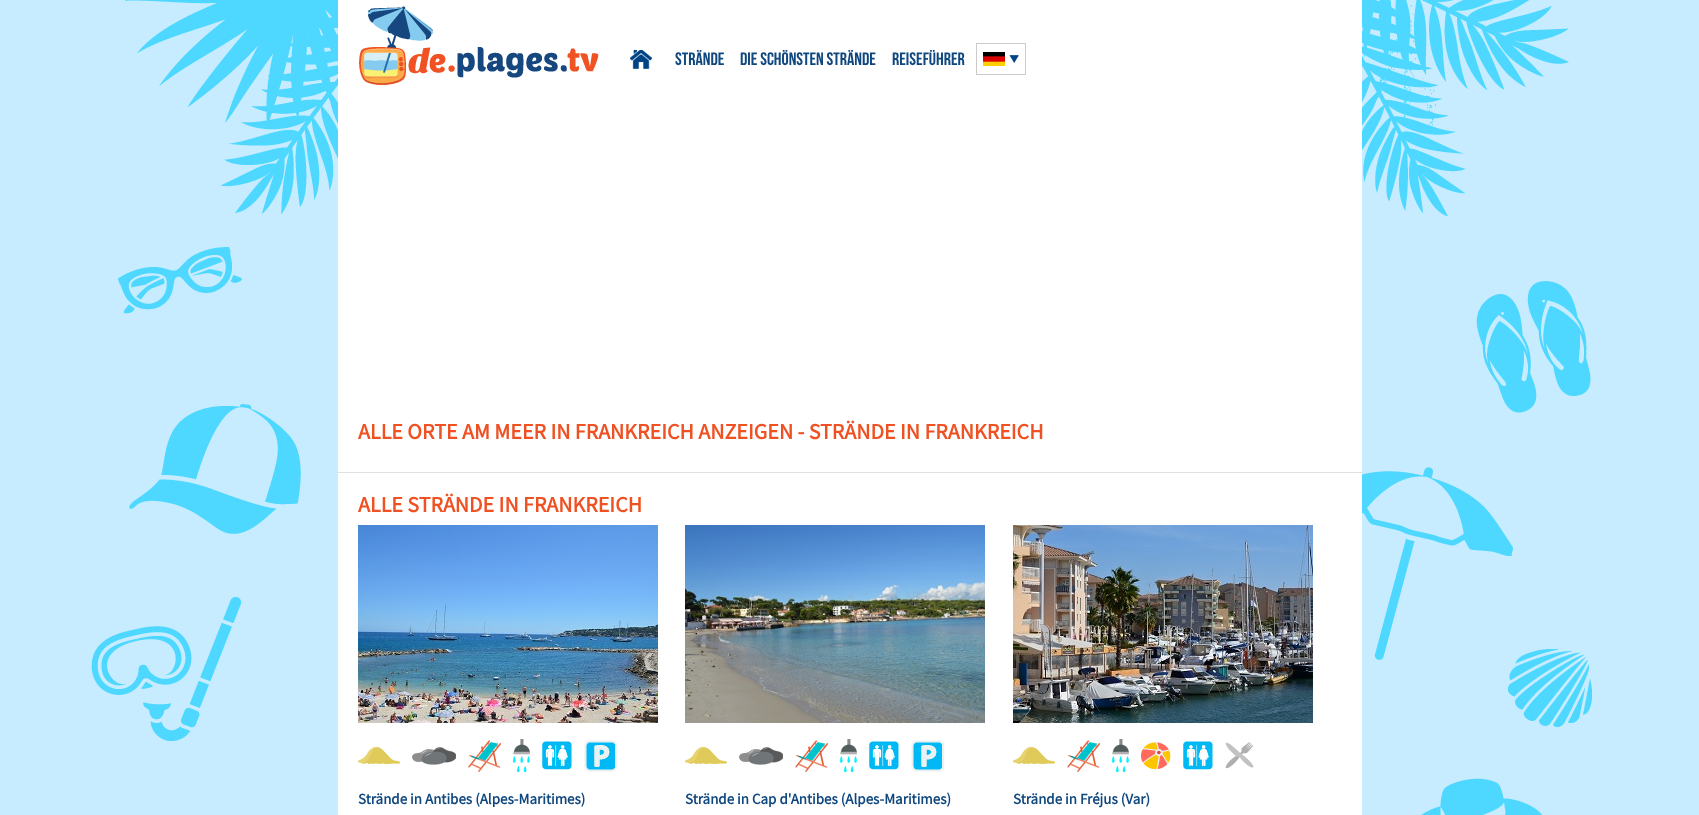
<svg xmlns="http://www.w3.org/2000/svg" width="1699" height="815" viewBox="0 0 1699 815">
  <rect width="100%" height="100%" fill="#c7ecff"/>
  <image x="91" y="0" width="1501" height="815" href="img1.png"/>
  <rect x="338" y="0" width="1024" height="815" fill="#ffffff"/>
  <image x="359" y="6" width="240" height="79" href="img2.png"/>
  <image x="630" y="50" width="22" height="19" href="img3.png"/>
  <text x="675" y="65" font-family="Bebas Neue" font-size="18" font-weight="bold" fill="#0f477f">Strände</text>
  <text x="740" y="65" font-family="Bebas Neue" font-size="18" font-weight="bold" fill="#0f477f">Die schönsten Strände</text>
  <text x="892" y="65" font-family="Bebas Neue" font-size="18" font-weight="bold" fill="#0f477f">Reiseführer</text>
  <rect x="976.5" y="43.5" width="49" height="31" fill="none" stroke="#cbcbcb"/>
  <image x="983" y="52" width="22" height="14" href="img4.png"/>
  <image x="1009" y="55" width="10" height="8" href="img5.png"/>
  <text x="358" y="439" font-family="Source Sans Pro" font-size="22" font-weight="bold" fill="#ef5123">ALLE ORTE AM MEER IN FRANKREICH ANZEIGEN - STRÄNDE IN FRANKREICH</text>
  <rect x="338" y="472" width="1024" height="1" fill="#e0e0e0"/>
  <text x="358" y="512" font-family="Source Sans Pro" font-size="22" font-weight="bold" fill="#ef5123">ALLE STRÄNDE IN FRANKREICH</text>
  <image x="358" y="525" width="300" height="198" href="img6.png"/>
  <image x="358" y="747" width="42" height="17" href="img7.png"/>
  <image x="412" y="747" width="44" height="18" href="img8.png"/>
  <image x="468" y="740" width="33" height="32" href="img9.png"/>
  <image x="513" y="739" width="17" height="33" href="img10.png"/>
  <image x="542" y="741" width="30" height="29" href="img11.png"/>
  <image x="584" y="740" width="34" height="32" href="img12.png"/>
  <text x="358" y="804" font-family="Source Sans Pro" font-size="15" font-weight="bold" fill="#0f477f">Strände in Antibes (Alpes-Maritimes)</text>
  <image x="685" y="525" width="300" height="198" href="img13.png"/>
  <image x="685" y="747" width="42" height="17" href="img7.png"/>
  <image x="739" y="747" width="44" height="18" href="img8.png"/>
  <image x="795" y="740" width="33" height="32" href="img9.png"/>
  <image x="840" y="739" width="17" height="33" href="img10.png"/>
  <image x="869" y="741" width="30" height="29" href="img11.png"/>
  <image x="911" y="740" width="34" height="32" href="img12.png"/>
  <text x="685" y="804" font-family="Source Sans Pro" font-size="15" font-weight="bold" fill="#0f477f">Strände in Cap d'Antibes (Alpes-Maritimes)</text>
  <image x="1013" y="525" width="300" height="198" href="img14.png"/>
  <image x="1013" y="747" width="42" height="17" href="img7.png"/>
  <image x="1067" y="740" width="33" height="32" href="img9.png"/>
  <image x="1112" y="739" width="17" height="33" href="img10.png"/>
  <image x="1141" y="742" width="30" height="28" href="img15.png"/>
  <image x="1183" y="741" width="30" height="29" href="img11.png"/>
  <image x="1225" y="742" width="29" height="27" href="img16.png"/>
  <text x="1013" y="804" font-family="Source Sans Pro" font-size="15" font-weight="bold" fill="#0f477f">Strände in Fréjus (Var)</text>
</svg>
